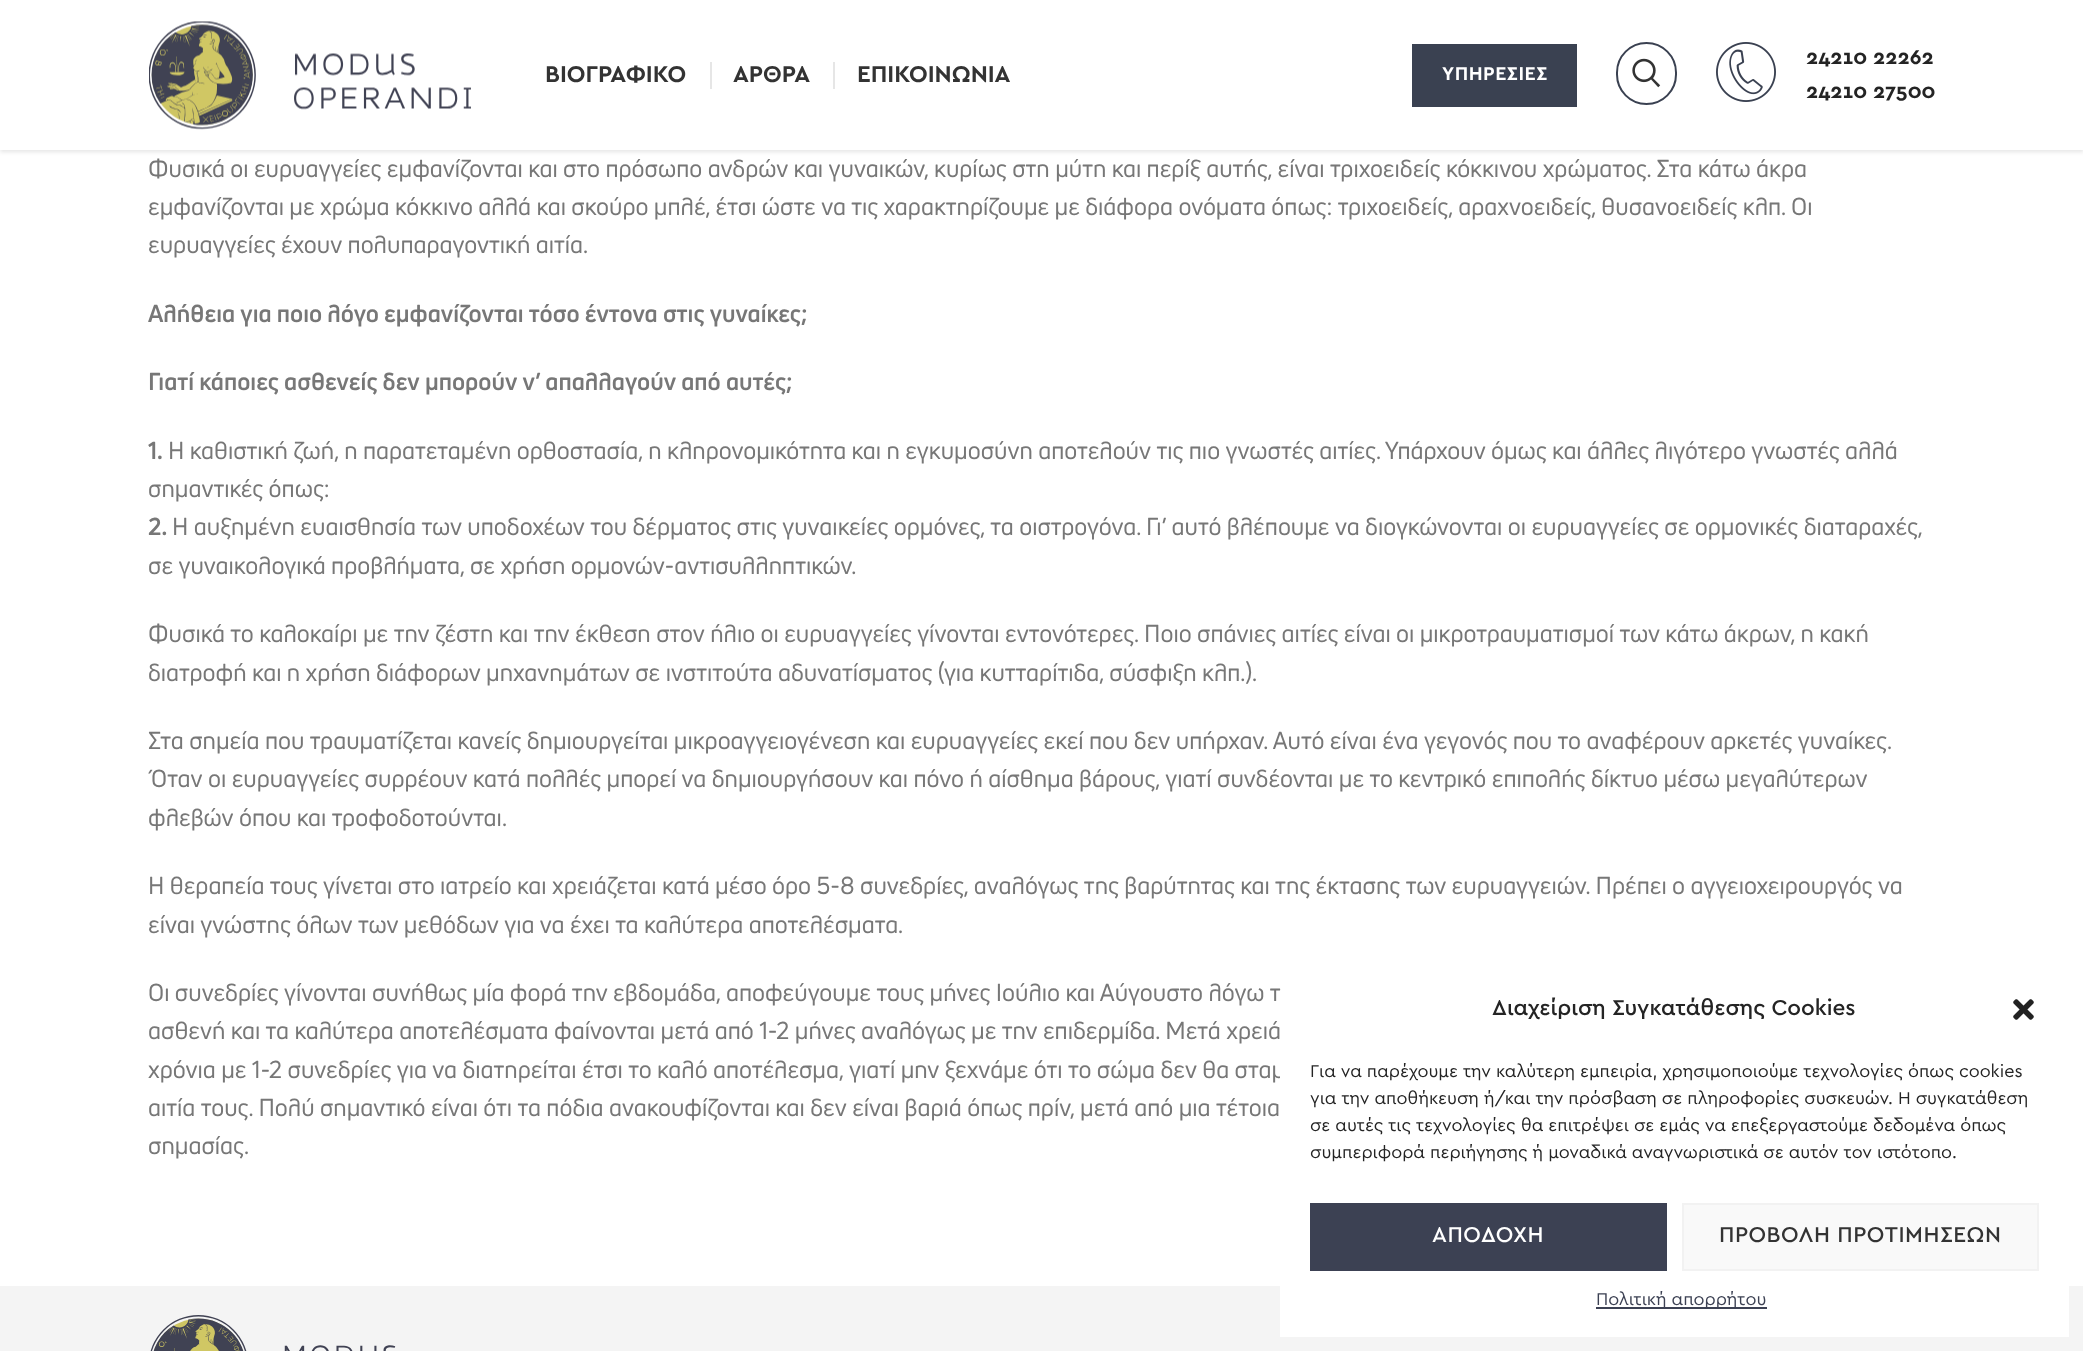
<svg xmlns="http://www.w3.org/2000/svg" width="2083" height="1351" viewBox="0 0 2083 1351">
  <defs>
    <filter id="blur1" x="-50%" y="-200%" width="200%" height="500%"><feGaussianBlur stdDeviation="2"/></filter>
  </defs>
  <rect width="100%" height="100%" fill="#ffffff"/>
  <rect x="0" y="2" width="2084" height="150" fill="#000000" fill-opacity="0.1" filter="url(#blur1)"/>
  <rect x="0" y="0" width="2083" height="150" fill="#ffffff"/>
  <image x="149" y="21" width="322" height="109" href="img1.png"/>
  <text x="545" y="82" font-family="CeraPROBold" font-size="24" font-weight="bold" fill="#333333">ΒΙΟΓΡΑΦΙΚΟ</text>
  <rect x="710" y="62" width="2" height="27" fill="#e6e6e6"/>
  <text x="733" y="82" font-family="CeraPROBold" font-size="24" font-weight="bold" fill="#333333">ΑΡΘΡΑ</text>
  <rect x="833" y="62" width="2" height="27" fill="#e6e6e6"/>
  <text x="857" y="82" font-family="CeraPROBold" font-size="24" font-weight="bold" fill="#333333">ΕΠΙΚΟΙΝΩΝΙΑ</text>
  <rect x="1412" y="44" width="165" height="63" fill="#3a4151"/>
  <text x="1442" y="80" font-family="CeraPROBold" font-size="19.5" font-weight="bold" letter-spacing="0.5" fill="#ffffff">ΥΠΗΡΕΣΙΕΣ</text>
  <rect x="1617" y="43" width="59" height="61" rx="29.5" fill="none" stroke="#3a4151" stroke-width="2"/>
  <image x="1632" y="58" width="29" height="30" href="img2.png"/>
  <image x="1716" y="42" width="60" height="60" href="img3.png"/>
  <text x="1806" y="64" font-family="CeraPROBold" font-size="21" font-weight="bold" fill="#242424">24210 22262</text>
  <text x="1806" y="98" font-family="CeraPROBold" font-size="21" font-weight="bold" fill="#242424">24210 27500</text>
  <text x="148" y="177" font-family="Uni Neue" font-size="24" fill="#777777">Φυσικά οι ευρυαγγείες εμφανίζονται και στο πρόσωπο ανδρών και γυναικών, κυρίως στη μύτη και περίξ αυτής, είναι τριχοειδείς κόκκινου χρώματος. Στα κάτω άκρα</text>
  <text x="148" y="215" font-family="Uni Neue" font-size="24" fill="#777777">εμφανίζονται με χρώμα κόκκινο αλλά και σκούρο μπλέ, έτσι ώστε να τις χαρακτηρίζουμε με διάφορα ονόματα όπως: τριχοειδείς, αραχνοειδείς, θυσανοειδείς κλπ. Οι</text>
  <text x="148" y="253" font-family="Uni Neue" font-size="24" fill="#777777">ευρυαγγείες έχουν πολυπαραγοντική αιτία.</text>
  <text x="148" y="322" font-family="Uni Neue" font-size="24" font-weight="bold" fill="#777777">Αλήθεια για ποιο λόγο εμφανίζονται τόσο έντονα στις γυναίκες;</text>
  <text x="148" y="390" font-family="Uni Neue" font-size="24" font-weight="bold" fill="#777777">Γιατί κάποιες ασθενείς δεν μπορούν ν’ απαλλαγούν από αυτές;</text>
  <text x="148" y="459" font-family="Uni Neue" font-size="24" font-weight="bold" fill="#777777">1.</text>
  <text x="168" y="459" font-family="Uni Neue" font-size="24" fill="#777777">Η καθιστική ζωή, η παρατεταμένη ορθοστασία, η κληρονομικότητα και η εγκυμοσύνη αποτελούν τις πιο γνωστές αιτίες. Υπάρχουν όμως και άλλες λιγότερο γνωστές αλλά</text>
  <text x="148" y="497" font-family="Uni Neue" font-size="24" fill="#777777">σημαντικές όπως:</text>
  <text x="148" y="535" font-family="Uni Neue" font-size="24" font-weight="bold" fill="#777777">2.</text>
  <text x="172" y="535" font-family="Uni Neue" font-size="24" fill="#777777">Η αυξημένη ευαισθησία των υποδοχέων του δέρματος στις γυναικείες ορμόνες, τα οιστρογόνα. Γι’ αυτό βλέπουμε να διογκώνονται οι ευρυαγγείες σε ορμονικές διαταραχές,</text>
  <text x="148" y="574" font-family="Uni Neue" font-size="24" fill="#777777">σε γυναικολογικά προβλήματα, σε χρήση ορμονών-αντισυλληπτικών.</text>
  <text x="148" y="642" font-family="Uni Neue" font-size="24" fill="#777777">Φυσικά το καλοκαίρι με την ζέστη και την έκθεση στον ήλιο οι ευρυαγγείες γίνονται εντονότερες. Ποιο σπάνιες αιτίες είναι οι μικροτραυματισμοί των κάτω άκρων, η κακή</text>
  <text x="148" y="681" font-family="Uni Neue" font-size="24" fill="#777777">διατροφή και η χρήση διάφορων μηχανημάτων σε ινστιτούτα αδυνατίσματος (για κυτταρίτιδα, σύσφιξη κλπ.).</text>
  <text x="148" y="749" font-family="Uni Neue" font-size="24" fill="#777777">Στα σημεία που τραυματίζεται κανείς δημιουργείται μικροαγγειογένεση και ευρυαγγείες εκεί που δεν υπήρχαν. Αυτό είναι ένα γεγονός που το αναφέρουν αρκετές γυναίκες.</text>
  <text x="148" y="787" font-family="Uni Neue" font-size="24" fill="#777777">Όταν οι ευρυαγγείες συρρέουν κατά πολλές μπορεί να δημιουργήσουν και πόνο ή αίσθημα βάρους, γιατί συνδέονται με το κεντρικό επιπολής δίκτυο μέσω μεγαλύτερων</text>
  <text x="148" y="826" font-family="Uni Neue" font-size="24" fill="#777777">φλεβών όπου και τροφοδοτούνται.</text>
  <text x="148" y="894" font-family="Uni Neue" font-size="24" fill="#777777">Η θεραπεία τους γίνεται στο ιατρείο και χρειάζεται κατά μέσο όρο 5-8 συνεδρίες, αναλόγως της βαρύτητας και της έκτασης των ευρυαγγειών. Πρέπει ο αγγειοχειρουργός να</text>
  <text x="148" y="933" font-family="Uni Neue" font-size="24" fill="#777777">είναι γνώστης όλων των μεθόδων για να έχει τα καλύτερα αποτελέσματα.</text>
  <text x="148" y="1001" font-family="Uni Neue" font-size="24" fill="#777777">Οι συνεδρίες γίνονται συνήθως μία φορά την εβδομάδα, αποφεύγουμε τους μήνες Ιούλιο και Αύγουστο λόγω τ</text>
  <text x="148" y="1039" font-family="Uni Neue" font-size="24" fill="#777777">ασθενή και τα καλύτερα αποτελέσματα φαίνονται μετά από 1-2 μήνες αναλόγως με την επιδερμίδα. Μετά χρειά</text>
  <text x="148" y="1078" font-family="Uni Neue" font-size="24" fill="#777777">χρόνια με 1-2 συνεδρίες για να διατηρείται έτσι το καλό αποτέλεσμα, γιατί μην ξεχνάμε ότι το σώμα δεν θα σταμ</text>
  <text x="148" y="1116" font-family="Uni Neue" font-size="24" fill="#777777">αιτία τους. Πολύ σημαντικό είναι ότι τα πόδια ανακουφίζονται και δεν είναι βαριά όπως πρίν, μετά από μια τέτοια</text>
  <text x="148" y="1154" font-family="Uni Neue" font-size="24" fill="#777777">σημασίας.</text>
  <rect x="0" y="1286" width="2083" height="65" fill="#f4f4f4"/>
  <image x="150" y="1315" width="246" height="36" href="img4.png"/>
  <rect x="1280" y="1065" width="789" height="272" fill="#ffffff"/>
  <text x="1492" y="1015" font-family="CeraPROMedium" font-size="22.5" font-weight="500" fill="#242424">Διαχείριση Συγκατάθεσης Cookies</text>
  <image x="2013" y="999" width="21" height="21" href="img5.png"/>
  <text x="1310" y="1077" font-family="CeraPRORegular" font-size="18" fill="#242424">Για να παρέχουμε την καλύτερη εμπειρία, χρησιμοποιούμε τεχνολογίες όπως cookies</text>
  <text x="1310" y="1104" font-family="CeraPRORegular" font-size="18" fill="#242424">για την αποθήκευση ή/και την πρόσβαση σε πληροφορίες συσκευών. Η συγκατάθεση</text>
  <text x="1310" y="1131" font-family="CeraPRORegular" font-size="18" fill="#242424">σε αυτές τις τεχνολογίες θα επιτρέψει σε εμάς να επεξεργαστούμε δεδομένα όπως</text>
  <text x="1310" y="1158" font-family="CeraPRORegular" font-size="18" fill="#242424">συμπεριφορά περιήγησης ή μοναδικά αναγνωριστικά σε αυτόν τον ιστότοπο.</text>
  <rect x="1310" y="1203" width="357" height="68" fill="#3c4153"/>
  <text x="1432" y="1242" font-family="CeraPROMedium" font-size="22.5" font-weight="500" letter-spacing="0.5" fill="#ffffff">ΑΠΟΔΟΧΗ</text>
  <rect x="1683" y="1204" width="355" height="66" fill="#f9f9f9" stroke="#f2f2f2" stroke-width="2"/>
  <text x="1719" y="1242" font-family="CeraPROMedium" font-size="22.5" font-weight="500" letter-spacing="0.5" fill="#333333">ΠΡΟΒΟΛΗ ΠΡΟΤΙΜΗΣΕΩΝ</text>
  <rect x="1596" y="1307" width="171" height="2" fill="#3c4153"/>
  <text x="1596" y="1305" font-family="CeraPRORegular" font-size="18" fill="#3c4153">Πολιτική απορρήτου</text>
</svg>
